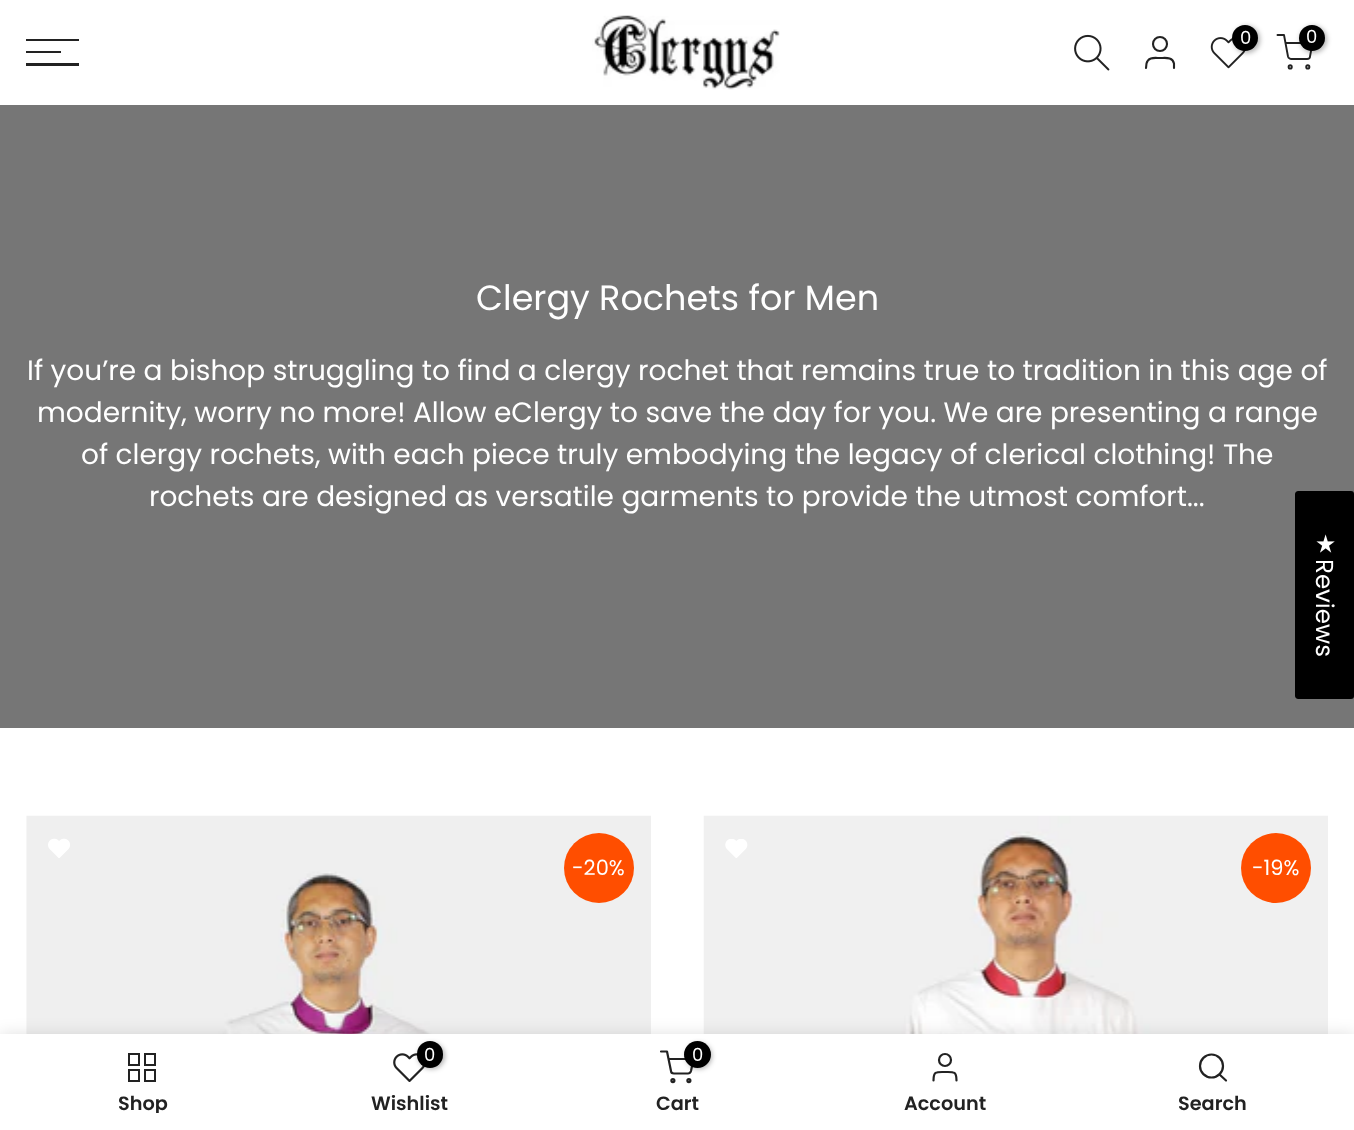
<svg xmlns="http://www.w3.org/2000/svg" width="1354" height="1130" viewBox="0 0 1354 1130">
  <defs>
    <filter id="blur1" x="-50%" y="-200%" width="200%" height="500%"><feGaussianBlur stdDeviation="2.5"/></filter>
    <filter id="blur2" x="-50%" y="-200%" width="200%" height="500%"><feGaussianBlur stdDeviation="8"/></filter>
    <clipPath id="clip1"><rect x="26" y="1094" width="233" height="19"/></clipPath>
  </defs>
  <rect width="100%" height="100%" fill="#ffffff"/>
  <image x="592" y="15" width="188" height="75" href="img1.png"/>
  <image x="1074" y="34" width="36" height="37" href="img2.png"/>
  <circle cx="1160" cy="44" r="7" fill="none" stroke="#222222" stroke-width="2.1"/>
  <path d="M1174 68V63.5C1172.5 56.5 1165.5 58 1160 58C1155 58 1148 56.5 1146.5 63.5L1146 68" fill="none" stroke="#222222" stroke-width="2.1" stroke-linecap="round" stroke-linejoin="round"/>
  <image x="1210" y="37" width="36" height="32" href="img3.png"/>
  <rect x="1234" y="26" width="26" height="27" rx="13" fill="#000000" fill-opacity="0.3" filter="url(#blur1)"/>
  <circle cx="1245" cy="38" r="13" fill="#000000"/>
  <text x="1240" y="44" font-family="Poppins" font-size="18" fill="#ffffff">0</text>
  <path d="M1277.5 35H1284L1288 56.5C1288.5 58 1289.5 59 1291.5 59H1307C1308.5 59 1310 58 1310 56.5L1312.5 43H1285.5" fill="none" stroke="#222222" stroke-width="1.9" stroke-linecap="round" stroke-linejoin="round"/>
  <rect x="1300" y="26" width="27" height="27" rx="13.5" fill="#000000" fill-opacity="0.3" filter="url(#blur1)"/>
  <circle cx="1312" cy="38" r="13" fill="#000000"/>
  <text x="1306" y="43" font-family="Poppins" font-size="18" fill="#ffffff">0</text>
  <circle cx="1290.2" cy="66.9" r="1.6" fill="none" stroke="#222222" stroke-width="1.9"/>
  <circle cx="1307.8" cy="66.9" r="1.6" fill="none" stroke="#222222" stroke-width="1.9"/>
  <rect x="26" y="39" width="53" height="2" fill="#222222"/>
  <rect x="26" y="51" width="35" height="2" fill="#222222"/>
  <rect x="26" y="63" width="53" height="3" fill="#222222"/>
  <rect x="0" y="105" width="1354" height="623" fill="#767676"/>
  <text x="476" y="310" font-family="Poppins" font-size="35" fill="#ffffff">Clergy Rochets for Men</text>
  <text x="27" y="380" font-family="Poppins" font-size="28" fill="#ffffff">If you’re a bishop struggling to find a clergy rochet that remains true to tradition in this age of</text>
  <text x="37" y="422" font-family="Poppins" font-size="28" fill="#ffffff">modernity, worry no more! Allow eClergy to save the day for you. We are presenting a range</text>
  <text x="81" y="464" font-family="Poppins" font-size="28" fill="#ffffff">of clergy rochets, with each piece truly embodying the legacy of clerical clothing! The</text>
  <text x="149" y="506" font-family="Poppins" font-size="28" fill="#ffffff">rochets are designed as versatile garments to provide the utmost comfort...</text>
  <image x="26" y="815" width="625" height="219" href="img4.png"/>
  <image x="48" y="838" width="22" height="20" href="img5.png"/>
  <circle cx="599" cy="868" r="35" fill="#ff4e00"/>
  <text x="572" y="875" font-family="Poppins" font-size="21" fill="#ffffff">-20%</text>
  <image x="703" y="815" width="625" height="219" href="img6.png"/>
  <image x="725" y="839" width="23" height="19" href="img7.png"/>
  <circle cx="1276" cy="868" r="35" fill="#ff4e00"/>
  <text x="1252" y="875" font-family="Poppins" font-size="21" fill="#ffffff">-19%</text>
  <path d="M1354 494V696C1354 698 1353 699 1351 699H1298C1297 699 1295 698 1295 696V494C1295 492 1297 491 1298 491H1351C1353 491 1354 492 1354 494Z" fill="#000000"/>
  <image x="1316" y="534" width="19" height="19" href="img8.png"/>
  <text x="1316" y="559" transform="rotate(90 1316 559)" font-family="Poppins" font-size="24.5" fill="#ffffff">Reviews</text>
  <rect x="0" y="1034" width="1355" height="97" fill="#000000" fill-opacity="0.12" filter="url(#blur2)"/>
  <rect x="0" y="1034" width="1354" height="96" fill="#ffffff"/>
  <rect x="129" y="1054" width="10" height="11" fill="none" stroke="#222222" stroke-width="2"/>
  <rect x="145" y="1054" width="10" height="11" fill="none" stroke="#222222" stroke-width="2"/>
  <rect x="129" y="1070" width="10" height="11" fill="none" stroke="#222222" stroke-width="2"/>
  <rect x="145" y="1070" width="10" height="11" fill="none" stroke="#222222" stroke-width="2"/>
  <g clip-path="url(#clip1)">
    <text x="118" y="1110" font-family="Poppins" font-size="19.25" font-weight="600" fill="#222222">Shop</text>
  </g>
  <image x="393" y="1053" width="32" height="29" href="img9.png"/>
  <rect x="418" y="1043" width="27" height="26" rx="13" fill="#000000" fill-opacity="0.3" filter="url(#blur1)"/>
  <rect x="417" y="1041" width="26" height="27" rx="13" fill="#000000"/>
  <text x="424" y="1061" font-family="Poppins" font-size="18" fill="#ffffff">0</text>
  <text x="371" y="1110" font-family="Poppins" font-size="19.25" font-weight="600" fill="#222222">Wishlist</text>
  <path d="M661 1051.5H667L671 1071C671 1072.5 672.5 1073.5 674 1073.5H688C689.5 1073.5 690.5 1072.5 691 1071L693.5 1059H668.5" fill="none" stroke="#222222" stroke-width="2.2" stroke-linecap="round" stroke-linejoin="round"/>
  <rect x="686" y="1043" width="26" height="26" rx="13" fill="#000000" fill-opacity="0.3" filter="url(#blur1)"/>
  <circle cx="697.5" cy="1054.5" r="13.5" fill="#000000"/>
  <text x="692" y="1061" font-family="Poppins" font-size="18" fill="#ffffff">0</text>
  <circle cx="672.9" cy="1080.6" r="1.5" fill="none" stroke="#222222" stroke-width="2.2"/>
  <circle cx="688.9" cy="1080.6" r="1.5" fill="none" stroke="#222222" stroke-width="2.2"/>
  <text x="656" y="1110" font-family="Poppins" font-size="19.25" font-weight="600" fill="#222222">Cart</text>
  <circle cx="945" cy="1060" r="6" fill="none" stroke="#222222" stroke-width="2.2"/>
  <path d="M956.5 1080.5C956.5 1071 953.5 1072 945 1072C936.5 1072 933.5 1071 933.5 1080.5" fill="none" stroke="#222222" stroke-width="2.2" stroke-linecap="round" stroke-linejoin="round"/>
  <text x="904" y="1110" font-family="Poppins" font-size="19.25" font-weight="600" fill="#222222">Account</text>
  <circle cx="1211.5" cy="1066" r="11.5" fill="none" stroke="#222222" stroke-width="2.2"/>
  <path d="M1226 1080.5L1219.5 1074.5" fill="none" stroke="#222222" stroke-width="2.2" stroke-linecap="round" stroke-linejoin="round"/>
  <text x="1178" y="1110" font-family="Poppins" font-size="19.25" font-weight="600" fill="#222222">Search</text>
</svg>
